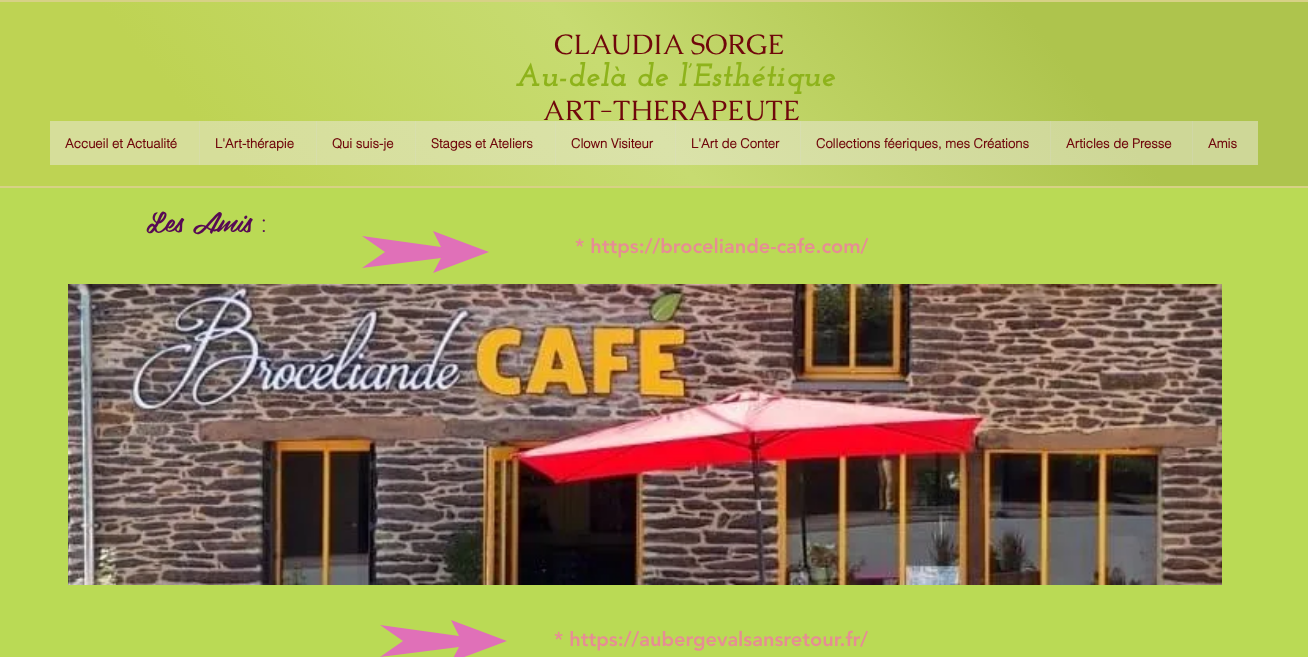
<svg xmlns="http://www.w3.org/2000/svg" width="1308" height="657" viewBox="0 0 1308 657">
  <defs>
    <linearGradient id="g1" gradientUnits="userSpaceOnUse" x1="219" y1="452" x2="1089" y2="-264"><stop offset="0.17" stop-color="#bed353"/><stop offset="0.48" stop-color="#c7db71"/><stop offset="0.8" stop-color="#aec44d"/></linearGradient>
    <linearGradient id="g2" gradientUnits="userSpaceOnUse" x1="219" y1="452" x2="1089" y2="-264"><stop offset="0.17" stop-color="#d6de9a"/><stop offset="0.48" stop-color="#dae2a9"/><stop offset="0.8" stop-color="#ced797"/></linearGradient>
  </defs>
  <rect width="100%" height="100%" fill="#bada55"/>
  <rect x="0" y="0" width="1308" height="2" fill="#d7d186"/>
  <rect x="0" y="186" width="1308" height="2" fill="#d7d186"/>
  <rect x="0" y="2" width="1308" height="184" fill="url(#g1)"/>
  <rect x="50" y="121" width="1208" height="44" fill="url(#g2)"/>
  <text x="554" y="54" font-family="Caudex" font-size="28" fill="#70070b">CLAUDIA SORGE</text>
  <text x="515" y="86" font-family="Josefin Slab" font-size="32" font-weight="bold" font-style="italic" fill="#8eb31b">Au-delà de l’Esthétique</text>
  <text x="543" y="120" font-family="Caudex" font-size="28" fill="#70070b">ART-THERAPEUTE</text>
  <text x="65" y="148" font-family="helvetica" font-size="13" font-weight="bold" fill="#70070b">Accueil et Actualité</text>
  <rect x="199" y="121" width="1" height="44" fill="#d7dda7"/>
  <text x="215" y="148" font-family="helvetica" font-size="13" font-weight="bold" fill="#70070b">L'Art-thérapie</text>
  <rect x="316" y="121" width="1" height="44" fill="#d7deaa"/>
  <text x="332" y="148" font-family="helvetica" font-size="13" font-weight="bold" fill="#70070b">Qui suis-je</text>
  <rect x="415" y="121" width="1" height="44" fill="#d8dfac"/>
  <text x="431" y="148" font-family="helvetica" font-size="13" font-weight="bold" fill="#70070b">Stages et Ateliers</text>
  <rect x="555" y="121" width="1" height="44" fill="#d9e0b0"/>
  <text x="571" y="148" font-family="helvetica" font-size="13" font-weight="bold" fill="#70070b">Clown Visiteur</text>
  <rect x="675" y="121" width="1" height="44" fill="#dae0b3"/>
  <text x="691" y="148" font-family="helvetica" font-size="13" font-weight="bold" fill="#70070b">L'Art de Conter</text>
  <rect x="800" y="121" width="1" height="44" fill="#d7deaf"/>
  <text x="816" y="148" font-family="helvetica" font-size="13" font-weight="bold" fill="#70070b">Collections féeriques, mes Créations</text>
  <rect x="1050" y="121" width="1" height="44" fill="#d2d9a7"/>
  <text x="1066" y="148" font-family="helvetica" font-size="13" font-weight="bold" fill="#70070b">Articles de Presse</text>
  <rect x="1192" y="121" width="1" height="44" fill="#d0d7a5"/>
  <text x="1208" y="148" font-family="helvetica" font-size="13" font-weight="bold" fill="#70070b">Amis</text>
  <text x="146" y="232" font-family="'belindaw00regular'" font-size="28" fill="#570a54">Les Amis</text>
  <text x="261" y="232" font-family="Bitter" font-size="28" font-weight="100" fill="#570a54">:</text>
  <path d="M489 252L433 231L441 247L362 236L385 252L362 268L441 258L433 273Z" fill="#e070b8"/>
  <text x="575" y="253" font-family="'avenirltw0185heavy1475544'" font-size="20" font-weight="900" fill="#e68e94">* https://broceliande-cafe.com/</text>
  <image x="68" y="284" width="1154" height="301" href="img1.png"/>
  <path d="M507 641L451 620L459 636L380 625L403 641L380 657L459 647L451 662Z" fill="#e070b8"/>
  <text x="554" y="646" font-family="'avenirltw0185heavy1475544'" font-size="20" font-weight="900" fill="#e68e94">* https://aubergevalsansretour.fr/</text>
</svg>
